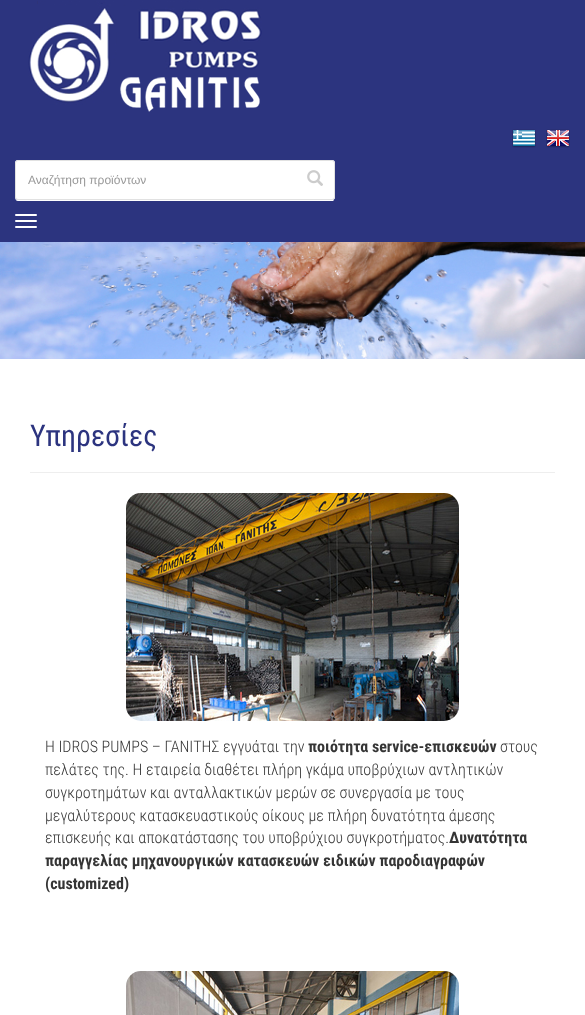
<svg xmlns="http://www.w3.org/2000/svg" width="585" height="1015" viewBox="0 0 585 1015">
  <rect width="100%" height="100%" fill="#ffffff"/>
  <rect x="0" y="0" width="585" height="242" fill="#2c347f"/>
  <image x="28" y="1" width="234" height="111" href="img1.png"/>
  <image x="512" y="129" width="24" height="19" href="img2.png"/>
  <image x="546" y="129" width="24" height="19" href="img3.png"/>
  <rect x="15" y="160" width="320" height="40" rx="3" fill="#ffffff"/>
  <path d="M15 197C15 199 16 201 18 201H333L334 200L335 197C335 199 334 200 332 200H18C16 200 15 199 15 197Z" fill="#ffffff"/>
  <rect x="15.5" y="160.5" width="319" height="39" rx="2.5" fill="none" stroke="#e1e1e1"/>
  <text x="28" y="184" font-family="Liberation Sans" font-size="12" fill="#999999">Αναζήτηση προϊόντων</text>
  <image x="307" y="170" width="16" height="16" href="img4.png"/>
  <rect x="15" y="214" width="22" height="2" rx="1" fill="#ffffff"/>
  <rect x="15" y="220" width="22" height="2" rx="1" fill="#ffffff"/>
  <rect x="15" y="226" width="22" height="2" rx="1" fill="#ffffff"/>
  <image x="0" y="242" width="585" height="117" href="img5.png"/>
  <text x="30" y="446" font-family="Roboto Condensed" font-size="30" fill="#2c347f">Υπηρεσίες</text>
  <rect x="30" y="472" width="525" height="1" fill="#eeeeee"/>
  <image x="126" y="493" width="333" height="228" href="img6.png"/>
  <text x="45" y="752" font-family="Roboto Condensed" font-size="16" font-weight="300" fill="#353535">Η IDROS PUMPS – ΓΑΝΙΤΗΣ εγγυάται την</text>
  <text x="308" y="752" font-family="Roboto Condensed" font-size="16" font-weight="bold" fill="#353535">ποιότητα service-επισκευών</text>
  <text x="500" y="752" font-family="Roboto Condensed" font-size="16" font-weight="300" fill="#353535">στους</text>
  <text x="45" y="775" font-family="Roboto Condensed" font-size="16" font-weight="300" fill="#353535">πελάτες της. Η εταιρεία διαθέτει πλήρη γκάμα υποβρύχιων αντλητικών</text>
  <text x="45" y="798" font-family="Roboto Condensed" font-size="16" font-weight="300" fill="#353535">συγκροτημάτων και ανταλλακτικών μερών σε συνεργασία με τους</text>
  <text x="45" y="821" font-family="Roboto Condensed" font-size="16" font-weight="300" fill="#353535">μεγαλύτερους κατασκευαστικούς οίκους με πλήρη δυνατότητα άμεσης</text>
  <text x="45" y="843" font-family="Roboto Condensed" font-size="16" font-weight="300" fill="#353535">επισκευής και αποκατάστασης του υποβρύχιου συγκροτήματος.</text>
  <text x="449" y="843" font-family="Roboto Condensed" font-size="16" font-weight="bold" fill="#353535">Δυνατότητα</text>
  <text x="45" y="866" font-family="Roboto Condensed" font-size="16" font-weight="bold" fill="#353535">παραγγελίας μηχανουργικών κατασκευών ειδικών παροδιαγραφών</text>
  <text x="45" y="889" font-family="Roboto Condensed" font-size="16" font-weight="bold" fill="#353535">(customized)</text>
  <image x="126" y="971" width="333" height="44" href="img7.png"/>
</svg>
